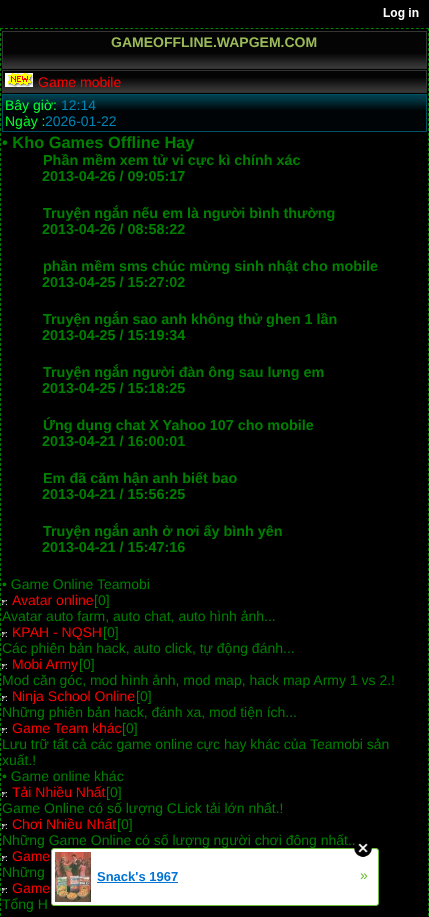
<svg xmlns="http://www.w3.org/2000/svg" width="429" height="917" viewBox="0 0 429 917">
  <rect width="100%" height="100%" fill="#000000"/>
  <path d="M0 28.5H429" fill="none" stroke="#008000" stroke-dasharray="3 2.01"/>
  <path d="M428.5 28V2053" fill="none" stroke="#008000" stroke-dasharray="3 2"/>
  <path d="M.5 28V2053" fill="none" stroke="#008000" stroke-dasharray="3 2"/>
  <rect x="3" y="32" width="423" height="22" fill="#040404"/>
  <image x="3" y="54" width="423" height="14" href="img1.png"/>
  <rect x="2.5" y="31.5" width="424" height="37" fill="none" stroke="#353535"/>
  <text x="111" y="47" font-family="Liberation Sans" font-size="14" font-weight="bold" fill="#9bbb59">GAMEOFFLINE.WAPGEM.COM</text>
  <rect x="3" y="71" width="423" height="7" fill="#040404"/>
  <image x="3" y="78" width="423" height="14" href="img1.png"/>
  <rect x="2.5" y="70.5" width="424" height="22" fill="none" stroke="#353535"/>
  <image x="5" y="73" width="28" height="14" href="img2.png"/>
  <text x="38" y="87" font-family="Liberation Sans" font-size="14" fill="#ff0000">Game mobile</text>
  <rect x="3" y="110" width="423" height="21" fill="#000406"/>
  <image x="3" y="95" width="423" height="15" href="img3.png"/>
  <rect x="2.5" y="94.5" width="424" height="37" fill="none" stroke="#005064"/>
  <text x="5" y="110" font-family="Liberation Sans" font-size="14" fill="#00ff33">Bây giờ:</text>
  <text x="61" y="110" font-family="Liberation Sans" font-size="14" fill="#0084b5">12:14</text>
  <text x="5" y="126" font-family="Liberation Sans" font-size="14" fill="#00ff26">Ngày :</text>
  <text x="45" y="126" font-family="Liberation Sans" font-size="14" fill="#0084b5">2026-01-22</text>
  <text x="2" y="148" font-family="Liberation Sans" font-size="16.4" font-weight="bold" fill="#008000">• Kho Games Offline Hay</text>
  <text x="43" y="165" font-family="Liberation Sans" font-size="14.4" font-weight="bold" fill="#008000">Phần mềm xem tử vi cực kì chính xác</text>
  <text x="42" y="181" font-family="Liberation Sans" font-size="14.4" font-weight="bold" fill="#008000">2013-04-26 / 09:05:17</text>
  <text x="43" y="218" font-family="Liberation Sans" font-size="14.4" font-weight="bold" fill="#008000">Truyện ngắn nếu em là người bình thường</text>
  <text x="42" y="234" font-family="Liberation Sans" font-size="14.4" font-weight="bold" fill="#008000">2013-04-26 / 08:58:22</text>
  <text x="43" y="271" font-family="Liberation Sans" font-size="14.4" font-weight="bold" fill="#008000">phần mềm sms chúc mừng sinh nhật cho mobile</text>
  <text x="42" y="287" font-family="Liberation Sans" font-size="14.4" font-weight="bold" fill="#008000">2013-04-25 / 15:27:02</text>
  <text x="43" y="324" font-family="Liberation Sans" font-size="14.4" font-weight="bold" fill="#008000">Truyện ngắn sao anh không thử ghen 1 lần</text>
  <text x="42" y="340" font-family="Liberation Sans" font-size="14.4" font-weight="bold" fill="#008000">2013-04-25 / 15:19:34</text>
  <text x="43" y="377" font-family="Liberation Sans" font-size="14.4" font-weight="bold" fill="#008000">Truyện ngắn người đàn ông sau lưng em</text>
  <text x="42" y="393" font-family="Liberation Sans" font-size="14.4" font-weight="bold" fill="#008000">2013-04-25 / 15:18:25</text>
  <text x="43" y="430" font-family="Liberation Sans" font-size="14.4" font-weight="bold" fill="#008000">Ứng dụng chat X Yahoo 107 cho mobile</text>
  <text x="42" y="446" font-family="Liberation Sans" font-size="14.4" font-weight="bold" fill="#008000">2013-04-21 / 16:00:01</text>
  <text x="43" y="483" font-family="Liberation Sans" font-size="14.4" font-weight="bold" fill="#008000">Em đã căm hận anh biết bao</text>
  <text x="42" y="499" font-family="Liberation Sans" font-size="14.4" font-weight="bold" fill="#008000">2013-04-21 / 15:56:25</text>
  <text x="43" y="536" font-family="Liberation Sans" font-size="14.4" font-weight="bold" fill="#008000">Truyện ngắn anh ở nơi ấy bình yên</text>
  <text x="42" y="552" font-family="Liberation Sans" font-size="14.4" font-weight="bold" fill="#008000">2013-04-21 / 15:47:16</text>
  <image x="383" y="8" width="36" height="12" href="img4.png"/>
  <text x="2" y="589" font-family="Liberation Sans" font-size="14" fill="#008000">• Game Online Teamobi</text>
  <image x="2" y="600" width="5" height="5" href="img5.png"/>
  <text x="12" y="605" font-family="Liberation Sans" font-size="14" fill="#ff0000">Avatar online</text>
  <text x="94" y="605" font-family="Liberation Sans" font-size="14" fill="#008000">[0]</text>
  <text x="2" y="621" font-family="Liberation Sans" font-size="14" fill="#008000">Avatar auto farm, auto chat, auto hình ảnh...</text>
  <image x="2" y="632" width="5" height="5" href="img5.png"/>
  <text x="12" y="637" font-family="Liberation Sans" font-size="14" fill="#ff0000">KPAH - NQSH</text>
  <text x="103" y="637" font-family="Liberation Sans" font-size="14" fill="#008000">[0]</text>
  <text x="2" y="653" font-family="Liberation Sans" font-size="14" fill="#008000">Các phiên bản hack, auto click, tự động đánh...</text>
  <image x="2" y="664" width="5" height="5" href="img5.png"/>
  <text x="12" y="669" font-family="Liberation Sans" font-size="14" fill="#ff0000">Mobi Army</text>
  <text x="79" y="669" font-family="Liberation Sans" font-size="14" fill="#008000">[0]</text>
  <text x="2" y="685" font-family="Liberation Sans" font-size="14" fill="#008000">Mod căn góc, mod hình ảnh, mod map, hack map Army 1 vs 2.!</text>
  <image x="2" y="696" width="5" height="5" href="img5.png"/>
  <text x="12" y="701" font-family="Liberation Sans" font-size="14" fill="#ff0000">Ninja School Online</text>
  <text x="136" y="701" font-family="Liberation Sans" font-size="14" fill="#008000">[0]</text>
  <text x="2" y="717" font-family="Liberation Sans" font-size="14" fill="#008000">Những phiên bản hack, đánh xa, mod tiện ích...</text>
  <image x="2" y="728" width="5" height="5" href="img5.png"/>
  <text x="12" y="733" font-family="Liberation Sans" font-size="14" fill="#ff0000">Game Team khác</text>
  <text x="122" y="733" font-family="Liberation Sans" font-size="14" fill="#008000">[0]</text>
  <text x="2" y="749" font-family="Liberation Sans" font-size="14" fill="#008000">Lưu trữ tất cả các game online cực hay khác của Teamobi sản</text>
  <text x="2" y="765" font-family="Liberation Sans" font-size="14" fill="#008000">xuất.!</text>
  <text x="2" y="781" font-family="Liberation Sans" font-size="14" fill="#008000">• Game online khác</text>
  <image x="2" y="792" width="5" height="5" href="img5.png"/>
  <text x="12" y="797" font-family="Liberation Sans" font-size="14" fill="#ff0000">Tải Nhiều Nhất</text>
  <text x="106" y="797" font-family="Liberation Sans" font-size="14" fill="#008000">[0]</text>
  <text x="2" y="813" font-family="Liberation Sans" font-size="14" fill="#008000">Game Online có số lượng CLick tải lớn nhất.!</text>
  <image x="2" y="824" width="5" height="5" href="img5.png"/>
  <text x="12" y="829" font-family="Liberation Sans" font-size="14" fill="#ff0000">Chơi Nhiều Nhất</text>
  <text x="117" y="829" font-family="Liberation Sans" font-size="14" fill="#008000">[0]</text>
  <text x="2" y="845" font-family="Liberation Sans" font-size="14" fill="#008000">Những Game Online có số lượng người chơi đông nhất..</text>
  <image x="2" y="856" width="5" height="5" href="img5.png"/>
  <text x="12" y="861" font-family="Liberation Sans" font-size="14" fill="#ff0000">Game</text>
  <text x="2" y="877" font-family="Liberation Sans" font-size="14" fill="#008000">Những</text>
  <rect x="51.5" y="848.5" width="327" height="57" rx="2.5" fill="#ffffff" stroke="#6bc135"/>
  <image x="354" y="843" width="18" height="14" href="img6.png"/>
  <image x="55" y="852" width="36" height="50" href="img7.png"/>
  <text x="97" y="881" font-family="Liberation Sans" font-size="13" font-weight="bold" fill="#0274d4">Snack's 1967</text>
  <rect x="97" y="882" width="81" height="1" fill="#0274d4"/>
  <text x="360" y="880" font-family="Liberation Sans" font-size="14" fill="#6bc135">»</text>
  <image x="2" y="888" width="5" height="5" href="img5.png"/>
  <text x="12" y="893" font-family="Liberation Sans" font-size="14" fill="#ff0000">Game</text>
  <text x="2" y="909" font-family="Liberation Sans" font-size="14" fill="#008000">Tổng H</text>
</svg>
